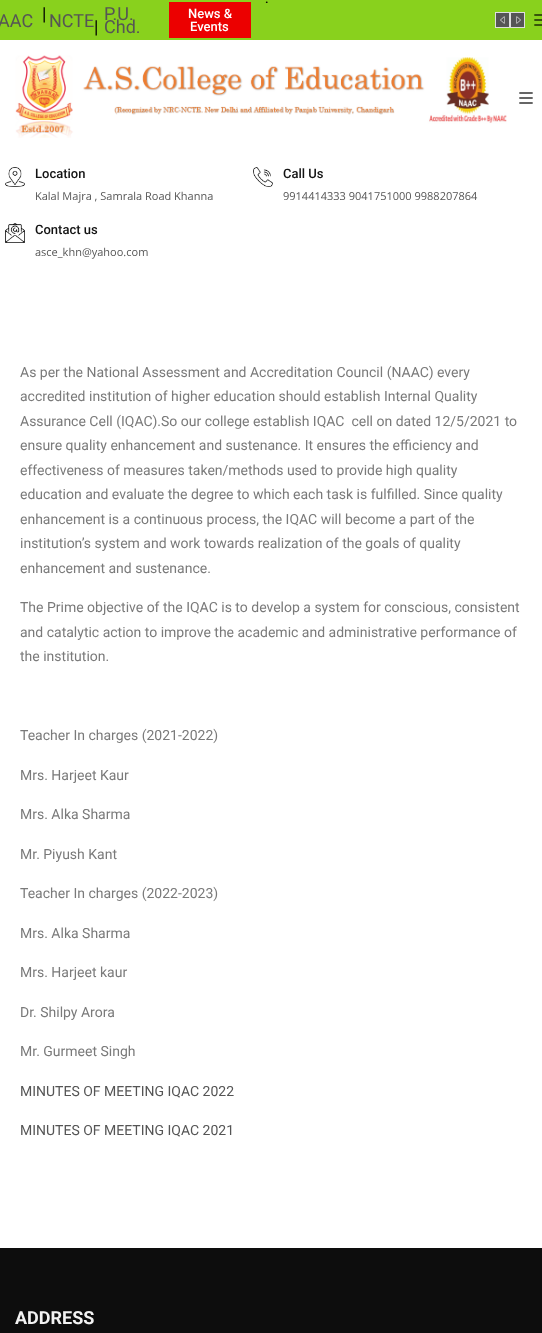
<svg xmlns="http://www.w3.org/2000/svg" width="542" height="1333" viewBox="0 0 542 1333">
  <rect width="100%" height="100%" fill="#ffffff"/>
  <rect x="0" y="0" width="542" height="40" fill="#89d11d"/>
  <text x="-2" y="27" font-family="Roboto" font-size="18" fill="#555555">AAC</text>
  <text x="42" y="20" font-family="Roboto" font-size="18" fill="#000000">|</text>
  <text x="49" y="27" font-family="Roboto" font-size="18" fill="#555555">NCTE</text>
  <text x="94" y="33" font-family="Roboto" font-size="18" fill="#000000">|</text>
  <text x="104" y="20" font-family="Roboto" font-size="18" fill="#555555">P.U.</text>
  <text x="104" y="33" font-family="Roboto" font-size="18" fill="#555555">Chd.</text>
  <text x="265" y="3" font-family="Roboto" font-size="13" font-weight="500" fill="#000000">.</text>
  <rect x="495.5" y="12.5" width="14" height="15" fill="#555555" stroke="#dedede"/>
  <image x="500" y="16" width="5" height="8" href="img1.png"/>
  <rect x="510.5" y="12.5" width="14" height="15" fill="#555555" stroke="#dedede"/>
  <image x="516" y="16" width="5" height="8" href="img2.png"/>
  <rect x="169" y="2" width="82" height="36" fill="#ec0000"/>
  <text x="188" y="18" font-family="Roboto" font-size="13" font-weight="500" fill="#ffffff">News &amp;</text>
  <text x="190" y="31" font-family="Roboto" font-size="13" font-weight="500" fill="#ffffff">Events</text>
  <image x="534" y="14" width="8" height="12" href="img3.png"/>
  <image x="15" y="55" width="492" height="83" href="img4.png"/>
  <image x="519" y="92" width="14" height="12" href="img5.png"/>
  <image x="5" y="167" width="20" height="20" href="img6.png"/>
  <text x="35" y="178" font-family="Roboto" font-size="13" font-weight="500" fill="#121212">Location</text>
  <text x="35" y="200" font-family="Open Sans" font-size="11" fill="#555555">Kalal Majra , Samrala Road Khanna</text>
  <image x="253" y="167" width="20" height="20" href="img7.png"/>
  <text x="283" y="178" font-family="Roboto" font-size="13" font-weight="500" fill="#121212">Call Us</text>
  <text x="283" y="200" font-family="Open Sans" font-size="11" fill="#555555">9914414333 9041751000 9988207864</text>
  <image x="5" y="223" width="20" height="20" href="img8.png"/>
  <text x="35" y="234" font-family="Roboto" font-size="13" font-weight="500" fill="#121212">Contact us</text>
  <text x="35" y="256" font-family="Open Sans" font-size="11" fill="#555555">asce_khn@yahoo.com</text>
  <text x="20" y="377" font-family="Roboto" font-size="14" fill="#7a7a7a">As per the National Assessment and Accreditation Council (NAAC) every</text>
  <text x="20" y="401" font-family="Roboto" font-size="14" fill="#7a7a7a">accredited institution of higher education should establish Internal Quality</text>
  <text x="20" y="426" font-family="Roboto" font-size="14" fill="#7a7a7a" xml:space="preserve">Assurance Cell (IQAC).So our college establish IQAC  cell on dated 12/5/2021 to</text>
  <text x="20" y="450" font-family="Roboto" font-size="14" fill="#7a7a7a">ensure quality enhancement and sustenance. It ensures the efficiency and</text>
  <text x="20" y="475" font-family="Roboto" font-size="14" fill="#7a7a7a">effectiveness of measures taken/methods used to provide high quality</text>
  <text x="20" y="499" font-family="Roboto" font-size="14" fill="#7a7a7a">education and evaluate the degree to which each task is fulfilled. Since quality</text>
  <text x="20" y="524" font-family="Roboto" font-size="14" fill="#7a7a7a">enhancement is a continuous process, the IQAC will become a part of the</text>
  <text x="20" y="548" font-family="Roboto" font-size="14" fill="#7a7a7a">institution’s system and work towards realization of the goals of quality</text>
  <text x="20" y="573" font-family="Roboto" font-size="14" fill="#7a7a7a">enhancement and sustenance.</text>
  <text x="20" y="612" font-family="Roboto" font-size="14" fill="#7a7a7a">The Prime objective of the IQAC is to develop a system for conscious, consistent</text>
  <text x="20" y="637" font-family="Roboto" font-size="14" fill="#7a7a7a">and catalytic action to improve the academic and administrative performance of</text>
  <text x="20" y="661" font-family="Roboto" font-size="14" fill="#7a7a7a">the institution.</text>
  <text x="20" y="740" font-family="Roboto" font-size="14" fill="#7a7a7a">Teacher In charges (2021-2022)</text>
  <text x="20" y="780" font-family="Roboto" font-size="14" fill="#7a7a7a">Mrs. Harjeet Kaur</text>
  <text x="20" y="819" font-family="Roboto" font-size="14" fill="#7a7a7a">Mrs. Alka Sharma</text>
  <text x="20" y="859" font-family="Roboto" font-size="14" fill="#7a7a7a">Mr. Piyush Kant</text>
  <text x="20" y="898" font-family="Roboto" font-size="14" fill="#7a7a7a">Teacher In charges (2022-2023)</text>
  <text x="20" y="938" font-family="Roboto" font-size="14" fill="#7a7a7a">Mrs. Alka Sharma</text>
  <text x="20" y="977" font-family="Roboto" font-size="14" fill="#7a7a7a">Mrs. Harjeet kaur</text>
  <text x="20" y="1017" font-family="Roboto" font-size="14" fill="#7a7a7a">Dr. Shilpy Arora</text>
  <text x="20" y="1056" font-family="Roboto" font-size="14" fill="#7a7a7a">Mr. Gurmeet Singh</text>
  <text x="20" y="1096" font-family="Roboto" font-size="14" fill="#555555">MINUTES OF MEETING IQAC 2022</text>
  <text x="20" y="1135" font-family="Roboto" font-size="14" fill="#555555">MINUTES OF MEETING IQAC 2021</text>
  <rect x="0" y="1248" width="542" height="85" fill="#0d0d0d"/>
  <text x="15" y="1324" font-family="Roboto" font-size="18" font-weight="bold" fill="#f2f2f2">ADDRESS</text>
</svg>
